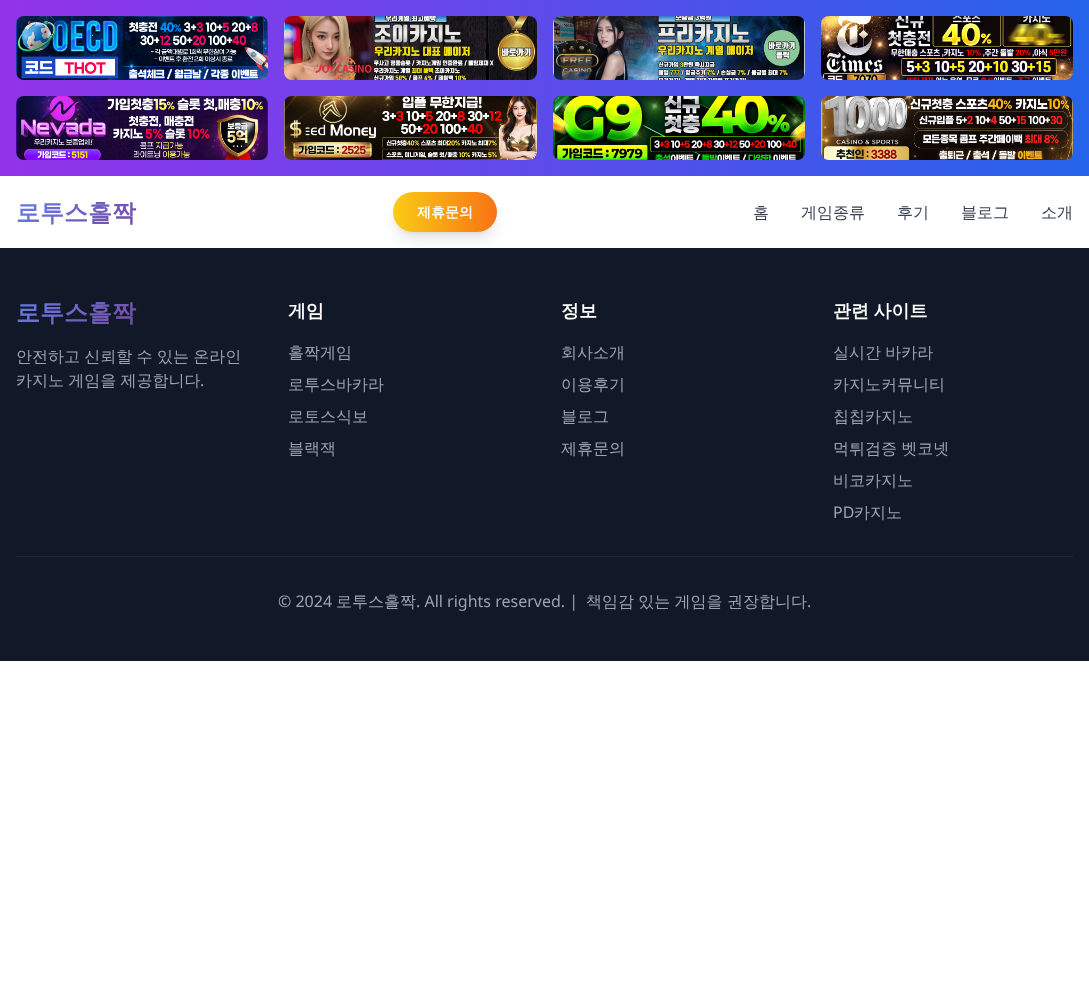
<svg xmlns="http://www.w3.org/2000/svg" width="1089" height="989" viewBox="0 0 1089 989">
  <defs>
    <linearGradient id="g1" gradientUnits="userSpaceOnUse" x1="38" y1="174" x2="114" y2="250"><stop offset="0" stop-color="#667eea"/><stop offset="1" stop-color="#764ba2"/></linearGradient>
    <linearGradient id="g2" gradientUnits="userSpaceOnUse" x1="38" y1="273" x2="114" y2="350"><stop offset="0" stop-color="#667eea"/><stop offset="1" stop-color="#764ba2"/></linearGradient>
    <linearGradient id="g3" gradientUnits="userSpaceOnUse" x1="0" y1="88" x2="1089" y2="88"><stop offset="0" stop-color="#9333ea"/><stop offset="1" stop-color="#2563eb"/></linearGradient>
    <filter id="blur1" x="-50%" y="-200%" width="200%" height="500%"><feGaussianBlur stdDeviation="3"/></filter>
    <filter id="blur2" x="-50%" y="-200%" width="200%" height="500%"><feGaussianBlur stdDeviation="7.5"/></filter>
    <linearGradient id="g4" gradientUnits="userSpaceOnUse" x1="393" y1="212" x2="497" y2="212"><stop offset="0" stop-color="#facc15"/><stop offset="1" stop-color="#f97316"/></linearGradient>
  </defs>
  <rect width="100%" height="100%" fill="#ffffff"/>
  <rect x="0" y="0" width="1089" height="176" fill="url(#g3)"/>
  <image x="16" y="16" width="252" height="64" href="img1.png"/>
  <image x="284" y="16" width="253" height="64" href="img2.png"/>
  <image x="553" y="16" width="252" height="64" href="img3.png"/>
  <image x="821" y="16" width="252" height="64" href="img4.png"/>
  <image x="16" y="96" width="252" height="64" href="img5.png"/>
  <image x="284" y="96" width="253" height="64" href="img6.png"/>
  <image x="553" y="96" width="252" height="64" href="img7.png"/>
  <image x="821" y="96" width="252" height="64" href="img8.png"/>
  <text x="16" y="221" font-family="WenQuanYi Zen Hei" font-size="24" font-weight="bold" fill="url(#g1)">로투스홀짝</text>
  <rect x="397" y="200" width="96" height="32" rx="16" fill="#000000" fill-opacity="0.1" filter="url(#blur1)"/>
  <rect x="0" y="248" width="1089" height="413" fill="#111827"/>
  <rect x="396" y="205" width="98" height="34" rx="17" fill="#000000" fill-opacity="0.1" filter="url(#blur2)"/>
  <rect x="393" y="192" width="104" height="40" rx="20" fill="url(#g4)"/>
  <text x="417" y="217" font-family="WenQuanYi Zen Hei" font-size="14" font-weight="bold" fill="#ffffff">제휴문의</text>
  <text x="753" y="218" font-family="WenQuanYi Zen Hei" font-size="16" font-weight="500" fill="#374151">홈</text>
  <text x="801" y="218" font-family="WenQuanYi Zen Hei" font-size="16" font-weight="500" fill="#374151">게임종류</text>
  <text x="897" y="218" font-family="WenQuanYi Zen Hei" font-size="16" font-weight="500" fill="#374151">후기</text>
  <text x="961" y="218" font-family="WenQuanYi Zen Hei" font-size="16" font-weight="500" fill="#374151">블로그</text>
  <text x="1041" y="218" font-family="WenQuanYi Zen Hei" font-size="16" font-weight="500" fill="#374151">소개</text>
  <text x="16" y="321" font-family="WenQuanYi Zen Hei" font-size="24" font-weight="bold" fill="url(#g2)">로투스홀짝</text>
  <text x="16" y="362" word-spacing="-0.5" font-family="WenQuanYi Zen Hei" font-size="16" font-weight="500" fill="#9ca3af">안전하고 신뢰할 수 있는 온라인</text>
  <text x="16" y="386" word-spacing="-0.5" font-family="WenQuanYi Zen Hei" font-size="16" font-weight="500" fill="#9ca3af">카지노 게임을 제공합니다</text>
  <text x="200" y="386" font-family="Noto Sans" font-size="16" fill="#9ca3af">.</text>
  <text x="288" y="317" font-family="WenQuanYi Zen Hei" font-size="18" font-weight="bold" fill="#ffffff">게임</text>
  <text x="288" y="358" font-family="WenQuanYi Zen Hei" font-size="16" font-weight="500" fill="#9ca3af">홀짝게임</text>
  <text x="288" y="390" font-family="WenQuanYi Zen Hei" font-size="16" font-weight="500" fill="#9ca3af">로투스바카라</text>
  <text x="288" y="422" font-family="WenQuanYi Zen Hei" font-size="16" font-weight="500" fill="#9ca3af">로토스식보</text>
  <text x="288" y="454" font-family="WenQuanYi Zen Hei" font-size="16" font-weight="500" fill="#9ca3af">블랙잭</text>
  <text x="561" y="317" font-family="WenQuanYi Zen Hei" font-size="18" font-weight="bold" fill="#ffffff">정보</text>
  <text x="561" y="358" font-family="WenQuanYi Zen Hei" font-size="16" font-weight="500" fill="#9ca3af">회사소개</text>
  <text x="561" y="390" font-family="WenQuanYi Zen Hei" font-size="16" font-weight="500" fill="#9ca3af">이용후기</text>
  <text x="561" y="422" font-family="WenQuanYi Zen Hei" font-size="16" font-weight="500" fill="#9ca3af">블로그</text>
  <text x="561" y="454" font-family="WenQuanYi Zen Hei" font-size="16" font-weight="500" fill="#9ca3af">제휴문의</text>
  <text x="833" y="317" word-spacing="-1" font-family="WenQuanYi Zen Hei" font-size="18" font-weight="bold" fill="#ffffff">관련 사이트</text>
  <text x="833" y="358" word-spacing="-0.5" font-family="WenQuanYi Zen Hei" font-size="16" font-weight="500" fill="#9ca3af">실시간 바카라</text>
  <text x="833" y="390" font-family="WenQuanYi Zen Hei" font-size="16" font-weight="500" fill="#9ca3af">카지노커뮤니티</text>
  <text x="833" y="422" font-family="WenQuanYi Zen Hei" font-size="16" font-weight="500" fill="#9ca3af">칩칩카지노</text>
  <text x="833" y="454" word-spacing="-0.5" font-family="WenQuanYi Zen Hei" font-size="16" font-weight="500" fill="#9ca3af">먹튀검증 벳코넷</text>
  <text x="833" y="486" font-family="WenQuanYi Zen Hei" font-size="16" font-weight="500" fill="#9ca3af">비코카지노</text>
  <text x="833" y="518" font-family="Noto Sans" font-size="16" fill="#9ca3af">PD</text>
  <text x="854" y="518" font-family="WenQuanYi Zen Hei" font-size="16" font-weight="500" fill="#9ca3af">카지노</text>
  <rect x="16" y="556" width="1057" height="1" fill="#1f2937"/>
  <text x="278" y="607" font-family="Noto Sans" font-size="16" fill="#9ca3af">© 2024</text>
  <text x="336" y="607" font-family="WenQuanYi Zen Hei" font-size="16" font-weight="500" fill="#9ca3af">로투스홀짝</text>
  <text x="416" y="607" font-family="Noto Sans" font-size="16" fill="#9ca3af">. All rights reserved. |</text>
  <text x="586" y="607" word-spacing="-0.5" font-family="WenQuanYi Zen Hei" font-size="16" font-weight="500" fill="#9ca3af">책임감 있는 게임을 권장합니다</text>
  <text x="807" y="607" font-family="Noto Sans" font-size="16" fill="#9ca3af">.</text>
</svg>
